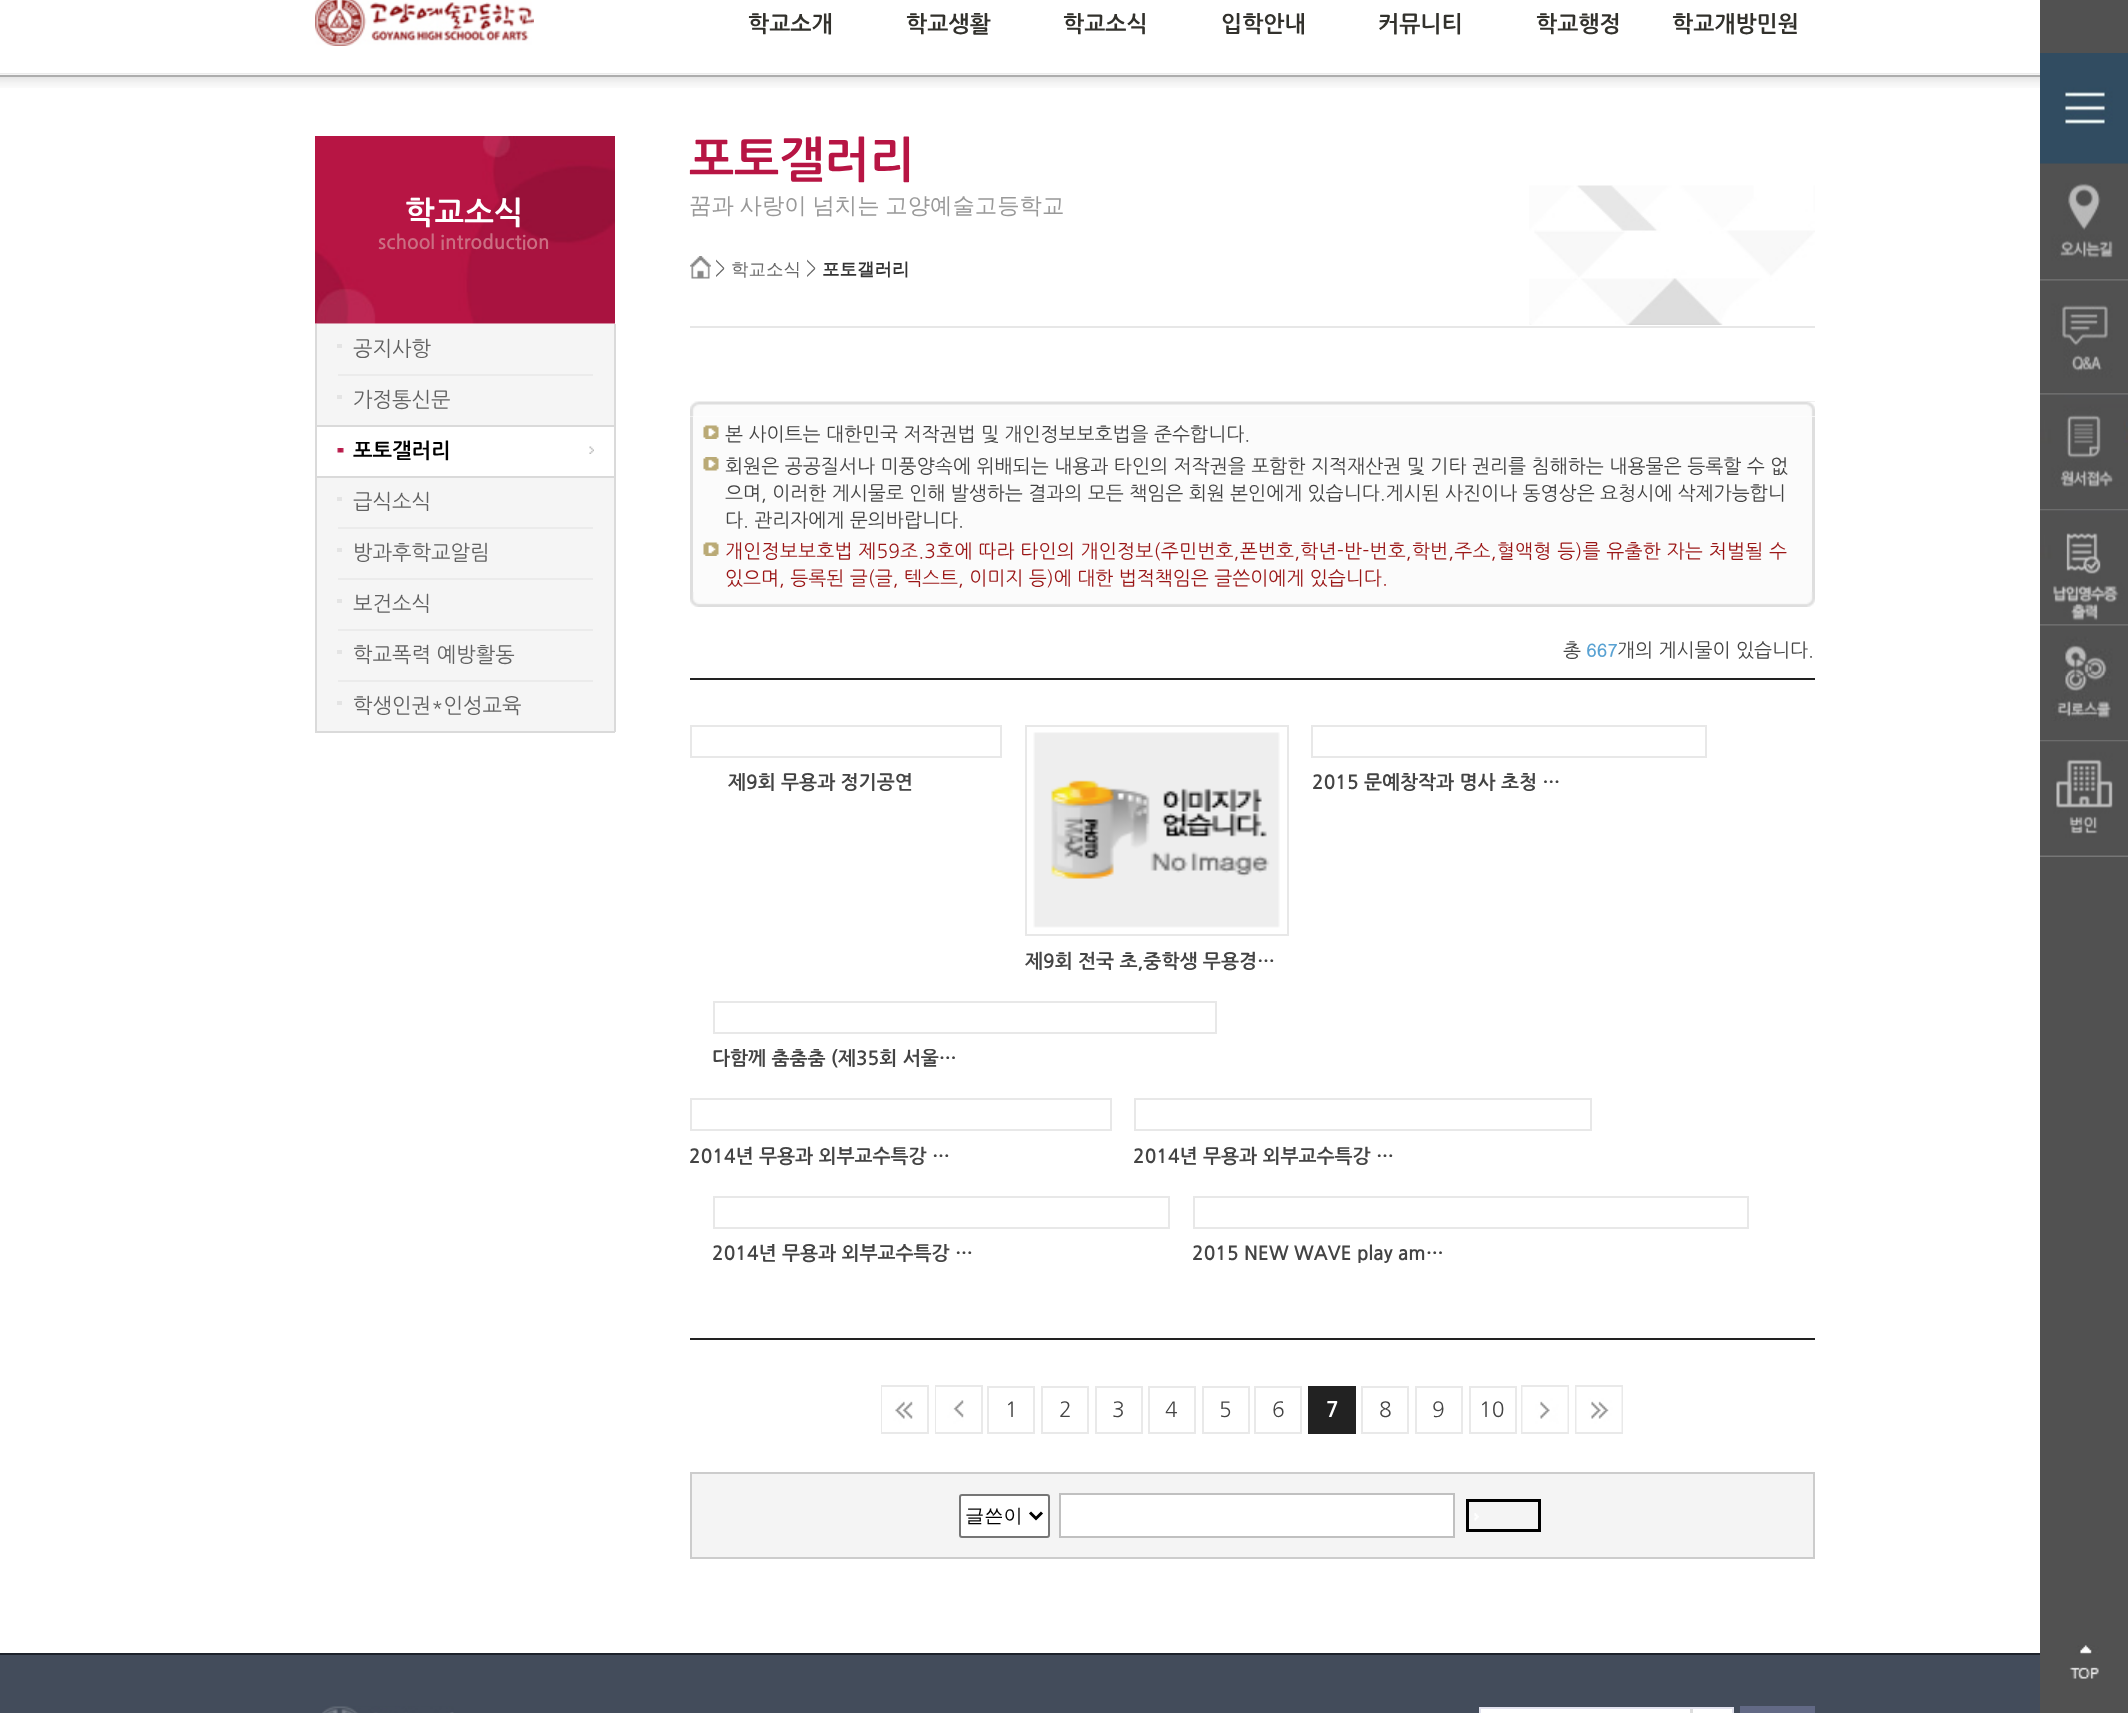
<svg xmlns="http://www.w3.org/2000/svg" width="2128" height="1713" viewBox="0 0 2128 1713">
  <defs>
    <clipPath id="clip1"><rect x="690" y="773" width="263" height="19"/></clipPath>
    <clipPath id="clip2"><rect x="1311" y="773" width="263" height="19"/></clipPath>
    <clipPath id="clip3"><rect x="713" y="1049" width="262" height="19"/></clipPath>
    <clipPath id="clip4"><rect x="713" y="1244" width="262" height="19"/></clipPath>
  </defs>
  <rect width="100%" height="100%" fill="#ffffff"/>
  <image x="0" y="73" width="2040" height="2" href="img1.png"/>
  <rect x="0" y="75" width="2040" height="2" fill="#adadad"/>
  <image x="315" y="0" width="219" height="46" href="img2.png"/>
  <text x="748" y="32" font-family="NanumGothic" font-size="22.5" font-weight="bold" fill="#32312c">학교소개</text>
  <text x="906" y="32" font-family="NanumGothic" font-size="22.5" font-weight="bold" fill="#32312c">학교생활</text>
  <text x="1063" y="32" font-family="NanumGothic" font-size="22.5" font-weight="bold" fill="#32312c">학교소식</text>
  <text x="1221" y="32" font-family="NanumGothic" font-size="22.5" font-weight="bold" fill="#32312c">입학안내</text>
  <text x="1378" y="32" font-family="NanumGothic" font-size="22.5" font-weight="bold" fill="#32312c">커뮤니티</text>
  <text x="1536" y="32" font-family="NanumGothic" font-size="22.5" font-weight="bold" fill="#32312c">학교행정</text>
  <text x="1672" y="32" font-family="NanumGothic" font-size="22.5" font-weight="bold" fill="#32312c">학교개방민원</text>
  <rect x="2040" y="0" width="88" height="1713" fill="#515151"/>
  <image x="2040" y="53" width="88" height="111" href="img3.png"/>
  <rect x="2040" y="279" width="88" height="2" fill="#767676"/>
  <image x="2040" y="183" width="88" height="97" href="img4.png"/>
  <rect x="2040" y="393" width="88" height="2" fill="#767676"/>
  <image x="2040" y="280" width="88" height="114" href="img5.png"/>
  <rect x="2040" y="509" width="88" height="2" fill="#767676"/>
  <image x="2040" y="394" width="88" height="93" href="img6.png"/>
  <rect x="2040" y="624" width="88" height="2" fill="#767676"/>
  <image x="2040" y="509" width="88" height="116" href="img7.png"/>
  <rect x="2040" y="740" width="88" height="2" fill="#767676"/>
  <image x="2040" y="625" width="88" height="96" href="img8.png"/>
  <rect x="2040" y="855" width="88" height="2" fill="#767676"/>
  <image x="2040" y="740" width="88" height="116" href="img9.png"/>
  <image x="2069" y="1645" width="30" height="34" href="img10.png"/>
  <image x="0" y="77" width="2040" height="11" href="img11.png"/>
  <image x="315" y="136" width="300" height="188" href="img12.png"/>
  <text x="405" y="224" font-family="NanumGothic" font-size="31.5" font-weight="bold" fill="#ffffff">학교소식</text>
  <text x="378" y="249" font-family="NanumGothic" font-size="19.2" font-weight="bold" fill="#cb6e82">school introduction</text>
  <rect x="317" y="324" width="297" height="407" fill="#f5f5f5"/>
  <rect x="614" y="324" width="2" height="408" fill="#dadada"/>
  <rect x="315" y="731" width="300" height="2" fill="#dadada"/>
  <rect x="315" y="324" width="2" height="408" fill="#dadada"/>
  <rect x="337" y="344" width="5" height="4" fill="#e4e4e4"/>
  <text x="353" y="356" font-family="NanumGothic" font-size="20.75" fill="#626262">공지사항</text>
  <rect x="337" y="395" width="5" height="4" fill="#e4e4e4"/>
  <rect x="338" y="374" width="255" height="2" fill="#ebebeb"/>
  <text x="353" y="407" font-family="NanumGothic" font-size="20.75" fill="#626262">가정통신문</text>
  <rect x="317" y="427" width="297" height="49" fill="#ffffff"/>
  <image x="589" y="446" width="5" height="8" href="img13.png"/>
  <rect x="317" y="425" width="297" height="2" fill="#dadada"/>
  <rect x="317" y="476" width="297" height="2" fill="#dadada"/>
  <image x="337" y="448" width="7" height="5" href="img14.png"/>
  <text x="353" y="458" font-family="NanumGothic" font-size="20.75" font-weight="bold" fill="#000000">포토갤러리</text>
  <rect x="337" y="497" width="5" height="4" fill="#e4e4e4"/>
  <text x="353" y="509" font-family="NanumGothic" font-size="20.75" fill="#626262">급식소식</text>
  <rect x="337" y="548" width="5" height="4" fill="#e4e4e4"/>
  <rect x="338" y="527" width="255" height="2" fill="#ebebeb"/>
  <text x="353" y="560" font-family="NanumGothic" font-size="20.75" fill="#626262">방과후학교알림</text>
  <rect x="337" y="599" width="5" height="4" fill="#e4e4e4"/>
  <rect x="338" y="578" width="255" height="2" fill="#ebebeb"/>
  <text x="353" y="611" font-family="NanumGothic" font-size="20.75" fill="#626262">보건소식</text>
  <rect x="337" y="650" width="5" height="4" fill="#e4e4e4"/>
  <rect x="338" y="629" width="255" height="2" fill="#ebebeb"/>
  <text x="353" y="662" font-family="NanumGothic" font-size="20.75" fill="#626262">학교폭력 예방활동</text>
  <rect x="337" y="701" width="5" height="4" fill="#e4e4e4"/>
  <rect x="338" y="680" width="255" height="2" fill="#ebebeb"/>
  <text x="353" y="713" font-family="NanumGothic" font-size="20.75" fill="#626262">학생인권*인성교육</text>
  <image x="1529" y="185" width="286" height="140" href="img15.png"/>
  <rect x="690" y="326" width="1125" height="2" fill="#e7e7e7"/>
  <text x="689" y="177" font-family="NanumGothic" font-size="48" font-weight="bold" fill="#b71544">포토갤러리</text>
  <text x="689" y="213" word-spacing="-1" font-family="WenQuanYi Zen Hei" font-size="22.4" font-weight="500" fill="#999999">꿈과 사랑이 넘치는 고양예술고등학교</text>
  <image x="690" y="256" width="21" height="23" href="img16.png"/>
  <text x="715" y="275" font-family="NanumGothic" font-size="19.2" fill="#686868">&gt;</text>
  <text x="731" y="275" font-family="WenQuanYi Zen Hei" font-size="17.5" font-weight="500" fill="#686868">학교소식</text>
  <text x="806" y="275" font-family="NanumGothic" font-size="19.2" fill="#686868">&gt;</text>
  <text x="822" y="275" font-family="WenQuanYi Zen Hei" font-size="17.5" font-weight="bold" fill="#333333">포토갤러리</text>
  <image x="690" y="401" width="1125" height="16" href="img17.png"/>
  <image x="1807" y="401" width="8" height="16" href="img18.png"/>
  <rect x="1812" y="417" width="3" height="176" fill="#dedede"/>
  <rect x="690" y="417" width="3" height="176" fill="#dedede"/>
  <rect x="693" y="417" width="1119" height="175" fill="#fbfbfb"/>
  <image x="703" y="425" width="16" height="14" href="img19.png"/>
  <text x="725" y="441" font-family="NanumGothic" font-size="19.2" fill="#444444">본 사이트는 대한민국 저작권법 및 개인정보보호법을 준수합니다.</text>
  <image x="703" y="457" width="16" height="14" href="img20.png"/>
  <text x="725" y="473" font-family="NanumGothic" font-size="19.2" letter-spacing="0.05" fill="#444444">회원은 공공질서나 미풍양속에 위배되는 내용과 타인의 저작권을 포함한 지적재산권 및 기타 권리를 침해하는 내용물은 등록할 수 없</text>
  <text x="725" y="500" font-family="NanumGothic" font-size="19.2" fill="#444444">으며, 이러한 게시물로 인해 발생하는 결과의 모든 책임은 회원 본인에게 있습니다.게시된 사진이나 동영상은 요청시에 삭제가능합니</text>
  <text x="725" y="527" font-family="NanumGothic" font-size="19.2" fill="#444444">다. 관리자에게 문의바랍니다.</text>
  <image x="703" y="542" width="16" height="14" href="img19.png"/>
  <text x="725" y="558" font-family="NanumGothic" font-size="19.2" letter-spacing="0.2" fill="#9a1515">개인정보보호법 제59조.3호에 따라 타인의 개인정보(주민번호,폰번호,학년-반-번호,학번,주소,혈액형 등)를 유출한 자는 처벌될 수</text>
  <text x="725" y="585" font-family="NanumGothic" font-size="19.2" fill="#9a1515">있으며, 등록된 글(글, 텍스트, 이미지 등)에 대한 법적책임은 글쓴이에게 있습니다.</text>
  <image x="690" y="592" width="1117" height="15" href="img21.png"/>
  <image x="1807" y="592" width="8" height="15" href="img22.png"/>
  <text x="1563" y="657" font-family="NanumGothic" font-size="19.2" fill="#444444">총</text>
  <text x="1586" y="657" font-family="Dotum" font-size="18" font-weight="bold" fill="#59a2d3">667</text>
  <text x="1617" y="657" font-family="NanumGothic" font-size="19.2" fill="#444444">개의 게시물이 있습니다.</text>
  <rect x="690" y="678" width="1125" height="2" fill="#222222"/>
  <rect x="690" y="1338" width="1125" height="2" fill="#222222"/>
  <rect x="691" y="726" width="310" height="31" fill="none" stroke="#e8e8e8" stroke-width="2"/>
  <g clip-path="url(#clip1)">
    <text x="728" y="789" font-family="NanumGothic" font-size="19.2" font-weight="bold" fill="#444444">제9회 무용과 정기공연</text>
  </g>
  <rect x="1312" y="726" width="394" height="31" fill="none" stroke="#e8e8e8" stroke-width="2"/>
  <g clip-path="url(#clip2)">
    <text x="1312" y="789" font-family="NanumGothic" font-size="19.2" font-weight="bold" fill="#444444">2015 문예창작과 명사 초청 …</text>
  </g>
  <rect x="1026" y="726" width="262" height="209" fill="none" stroke="#e8e8e8" stroke-width="2"/>
  <image x="1033" y="732" width="247" height="196" href="img23.png"/>
  <text x="1025" y="968" font-family="NanumGothic" font-size="19.2" font-weight="bold" fill="#444444">제9회 전국 초,중학생 무용경…</text>
  <rect x="714" y="1002" width="502" height="31" fill="none" stroke="#e8e8e8" stroke-width="2"/>
  <g clip-path="url(#clip3)">
    <text x="712" y="1065" font-family="NanumGothic" font-size="19.2" font-weight="bold" fill="#444444">다함께 춤춤춤 (제35회 서울…</text>
  </g>
  <rect x="691" y="1099" width="420" height="31" fill="none" stroke="#e8e8e8" stroke-width="2"/>
  <text x="689" y="1163" font-family="NanumGothic" font-size="19.2" font-weight="bold" fill="#444444">2014년 무용과 외부교수특강 …</text>
  <rect x="1135" y="1099" width="456" height="31" fill="none" stroke="#e8e8e8" stroke-width="2"/>
  <text x="1133" y="1163" font-family="NanumGothic" font-size="19.2" font-weight="bold" fill="#444444">2014년 무용과 외부교수특강 …</text>
  <rect x="714" y="1197" width="455" height="31" fill="none" stroke="#e8e8e8" stroke-width="2"/>
  <g clip-path="url(#clip4)">
    <text x="712" y="1260" font-family="NanumGothic" font-size="19.2" font-weight="bold" fill="#444444">2014년 무용과 외부교수특강 …</text>
  </g>
  <rect x="1194" y="1197" width="554" height="31" fill="none" stroke="#e8e8e8" stroke-width="2"/>
  <text x="1192" y="1260" font-family="NanumGothic" font-size="19.2" font-weight="bold" fill="#444444">2015 NEW WAVE play am…</text>
  <rect x="882" y="1386" width="46" height="47" fill="none" stroke="#e9e9e9" stroke-width="2"/>
  <image x="882" y="1387" width="31" height="45" href="img24.png"/>
  <rect x="936" y="1386" width="46" height="47" fill="none" stroke="#e9e9e9" stroke-width="2"/>
  <image x="936" y="1387" width="28" height="45" href="img25.png"/>
  <rect x="988" y="1387" width="46" height="46" fill="none" stroke="#e9e9e9" stroke-width="2"/>
  <text x="1005" y="1417" font-family="NanumGothic" font-size="21" fill="#444444">1</text>
  <rect x="1042" y="1387" width="46" height="46" fill="none" stroke="#e9e9e9" stroke-width="2"/>
  <text x="1059" y="1417" font-family="NanumGothic" font-size="21" fill="#444444">2</text>
  <rect x="1096" y="1387" width="46" height="46" fill="none" stroke="#e9e9e9" stroke-width="2"/>
  <text x="1112" y="1417" font-family="NanumGothic" font-size="21" fill="#444444">3</text>
  <rect x="1149" y="1387" width="46" height="46" fill="none" stroke="#e9e9e9" stroke-width="2"/>
  <text x="1165" y="1417" font-family="NanumGothic" font-size="21" fill="#444444">4</text>
  <rect x="1203" y="1387" width="46" height="46" fill="none" stroke="#e9e9e9" stroke-width="2"/>
  <text x="1219" y="1417" font-family="NanumGothic" font-size="21" fill="#444444">5</text>
  <rect x="1255" y="1387" width="46" height="46" fill="none" stroke="#e9e9e9" stroke-width="2"/>
  <text x="1272" y="1417" font-family="NanumGothic" font-size="21" fill="#444444">6</text>
  <rect x="1308" y="1386" width="48" height="48" fill="#222222"/>
  <text x="1326" y="1417" font-family="NanumGothic" font-size="21" font-weight="bold" fill="#ffffff">7</text>
  <rect x="1362" y="1387" width="46" height="46" fill="none" stroke="#e9e9e9" stroke-width="2"/>
  <text x="1379" y="1417" font-family="NanumGothic" font-size="21" fill="#444444">8</text>
  <rect x="1416" y="1387" width="46" height="46" fill="none" stroke="#e9e9e9" stroke-width="2"/>
  <text x="1432" y="1417" font-family="NanumGothic" font-size="21" fill="#444444">9</text>
  <rect x="1470" y="1387" width="46" height="46" fill="none" stroke="#e9e9e9" stroke-width="2"/>
  <text x="1479" y="1417" font-family="NanumGothic" font-size="21" fill="#444444">10</text>
  <rect x="1522" y="1386" width="46" height="47" fill="none" stroke="#e9e9e9" stroke-width="2"/>
  <image x="1522" y="1387" width="46" height="45" href="img26.png"/>
  <rect x="1576" y="1386" width="46" height="47" fill="none" stroke="#e9e9e9" stroke-width="2"/>
  <image x="1576" y="1387" width="46" height="45" href="img27.png"/>
  <rect x="691" y="1473" width="1123" height="85" fill="#f4f4f4" stroke="#cccccc" stroke-width="2"/>
  <rect x="960" y="1495" width="89" height="42" rx="2" fill="#ffffff" stroke="#767676" stroke-width="2"/>
  <path d="M1030 1512.5L1036 1518.5L1042 1512.5" fill="none" stroke="#000000" stroke-width="3"/>
  <text x="965" y="1522" font-family="WenQuanYi Zen Hei" font-size="19.2" font-weight="500" fill="#000000">글쓴이</text>
  <rect x="1060" y="1494" width="394" height="43" fill="#ffffff" stroke="#c0c0c0" stroke-width="2"/>
  <image x="1474" y="1513" width="5" height="8" href="img28.png"/>
  <rect x="1467.5" y="1500.5" width="72" height="30" fill="none" stroke="#000000" stroke-width="3"/>
  <rect x="0" y="1655" width="2040" height="58" fill="#434c5b"/>
  <rect x="0" y="1653" width="2040" height="2" fill="#1d222b"/>
  <image x="322" y="1706" width="132" height="7" href="img29.png"/>
  <rect x="1479" y="1709" width="255" height="4" fill="#ffffff"/>
  <rect x="1690" y="1708" width="3" height="5" fill="#dddddd"/>
  <rect x="1480" y="1708" width="253" height="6" fill="none" stroke="#e2e2ee" stroke-width="2"/>
  <rect x="1740" y="1706" width="75" height="7" fill="#626985"/>
</svg>
